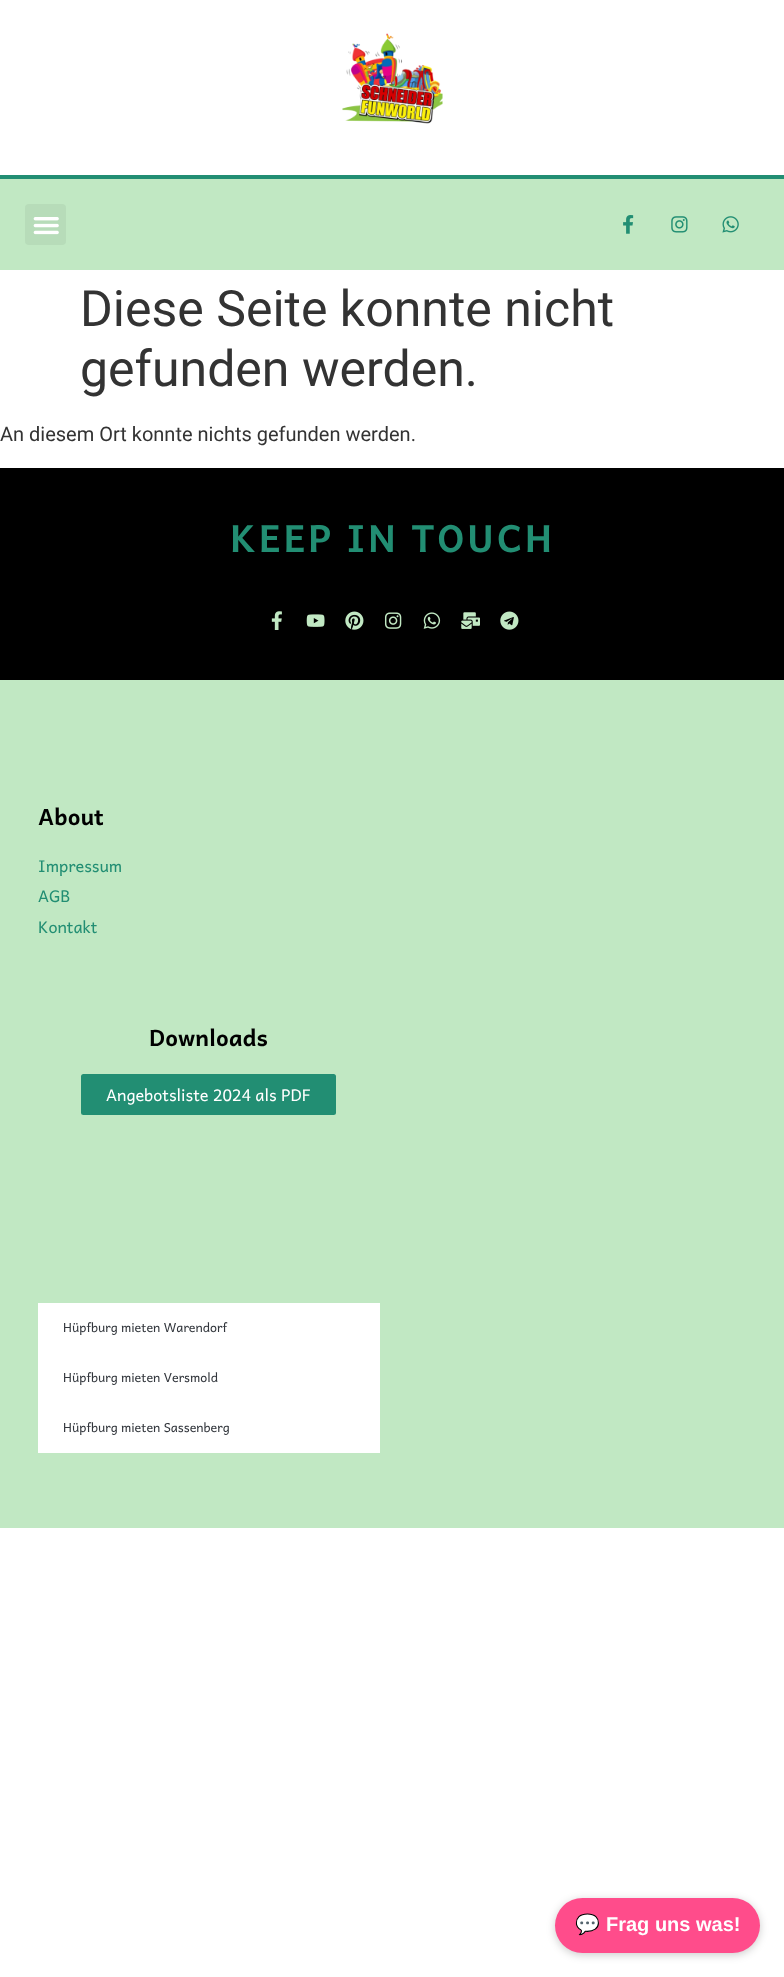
<svg xmlns="http://www.w3.org/2000/svg" width="784" height="1977" viewBox="0 0 784 1977">
  <defs>
    <filter id="blur1" x="-50%" y="-200%" width="200%" height="500%"><feGaussianBlur stdDeviation="4"/></filter>
  </defs>
  <rect width="100%" height="100%" fill="#ffffff"/>
  <image x="342" y="33" width="101" height="91" href="img1.png"/>
  <rect x="0" y="179" width="784" height="91" fill="#c1e8c3"/>
  <rect x="0" y="175" width="784" height="4" fill="#228e73"/>
  <rect x="25" y="204" width="41" height="41" rx="4" fill="#b7dcb9"/>
  <image x="33" y="217" width="26" height="18" href="img2.png"/>
  <image x="623" y="215" width="11" height="19" href="img3.png"/>
  <image x="671" y="216" width="17" height="17" href="img4.png"/>
  <image x="722" y="216" width="17" height="17" href="img5.png"/>
  <text x="80" y="326" font-family="Roboto" font-size="50" fill="#333333">Diese Seite konnte nicht</text>
  <text x="80" y="386" font-family="Roboto" font-size="50" fill="#333333">gefunden werden.</text>
  <text x="0" y="441" font-family="Roboto" font-size="20" fill="#333333">An diesem Ort konnte nichts gefunden werden.</text>
  <rect x="0" y="468" width="784" height="212" fill="#000000"/>
  <text x="230" y="552" font-family="Andika" font-size="37.5" font-weight="bold" letter-spacing="2.5" fill="#228e73">KEEP IN TOUCH</text>
  <image x="271" y="611" width="11" height="19" href="img6.png"/>
  <image x="306" y="614" width="19" height="13" href="img7.png"/>
  <image x="345" y="611" width="19" height="19" href="img8.png"/>
  <image x="384" y="612" width="18" height="17" href="img9.png"/>
  <image x="423" y="612" width="18" height="17" href="img10.png"/>
  <image x="461" y="612" width="19" height="17" href="img11.png"/>
  <image x="500" y="611" width="19" height="19" href="img12.png"/>
  <rect x="0" y="680" width="784" height="848" fill="#c1e8c3"/>
  <text x="38" y="825" font-family="Andika" font-size="22.5" font-weight="bold" fill="#000000">About</text>
  <text x="38" y="872" font-family="Andika" font-size="16.25" fill="#228e73">Impressum</text>
  <text x="38" y="902" font-family="Andika" font-size="16.25" fill="#228e73">AGB</text>
  <text x="38" y="933" font-family="Andika" font-size="16.25" fill="#228e73">Kontakt</text>
  <text x="149" y="1046" font-family="Andika" font-size="22.5" font-weight="bold" fill="#000000">Downloads</text>
  <rect x="81" y="1074" width="255" height="41" rx="2.5" fill="#228e73"/>
  <text x="106" y="1101" font-family="Andika" font-size="16.25" fill="#ffffff">Angebotsliste 2024 als PDF</text>
  <rect x="38" y="1303" width="342" height="150" fill="#ffffff"/>
  <text x="63" y="1332" font-family="Andika" font-size="12.5" fill="#33373d">Hüpfburg mieten Warendorf</text>
  <text x="63" y="1382" font-family="Andika" font-size="12.5" fill="#33373d">Hüpfburg mieten Versmold</text>
  <text x="63" y="1432" font-family="Andika" font-size="12.5" fill="#33373d">Hüpfburg mieten Sassenberg</text>
  <rect x="555" y="1900" width="205" height="55" rx="27.5" fill="#000000" fill-opacity="0.2" filter="url(#blur1)"/>
  <rect x="555" y="1898" width="205" height="55" rx="27.5" fill="#ff4c8b"/>
  <text x="575" y="1931" font-family="Noto Color Emoji" font-size="20" font-weight="bold" fill="#ffffff">💬</text>
  <text x="606" y="1931" font-family="Liberation Sans" font-size="20" font-weight="bold" fill="#ffffff">Frag uns was!</text>
</svg>
